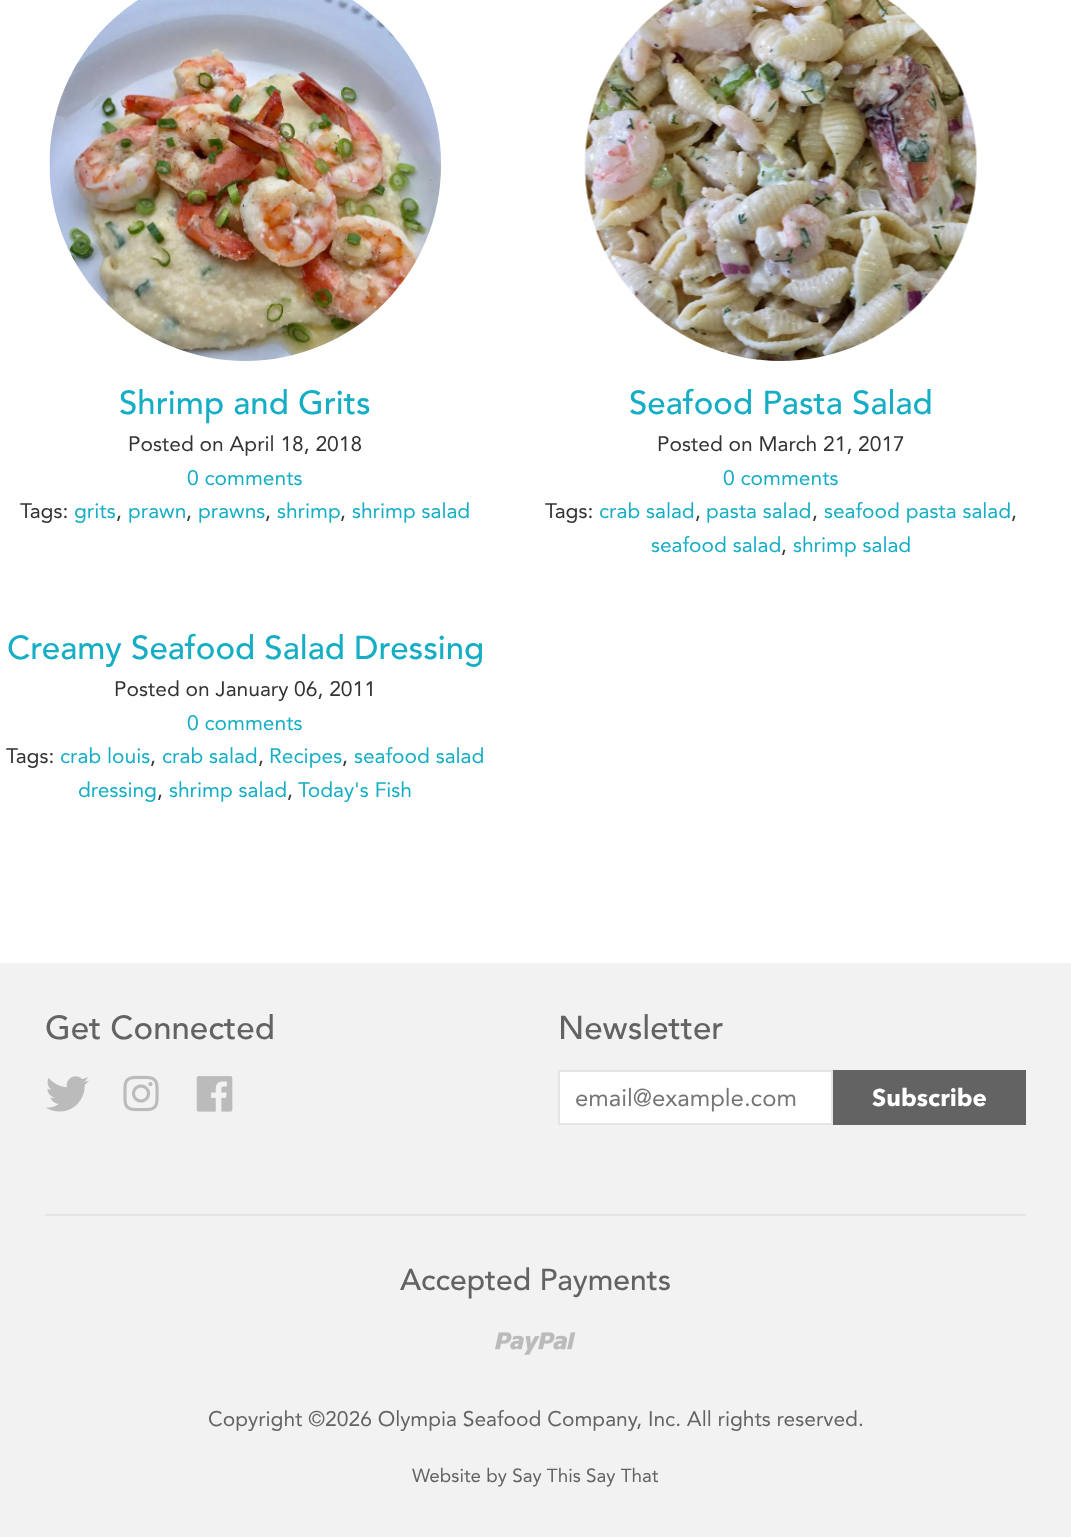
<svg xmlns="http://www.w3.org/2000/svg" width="1071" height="1537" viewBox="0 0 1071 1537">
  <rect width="100%" height="100%" fill="#ffffff"/>
  <image x="49" y="0" width="392" height="361" href="img1.png"/>
  <text x="119" y="414" font-family="Avenir" font-size="33" font-weight="500" fill="#15aec4">Shrimp and Grits</text>
  <text x="128" y="451" font-family="Avenir" font-size="21" fill="#333333">Posted on April 18, 2018</text>
  <text x="187" y="485" font-family="Avenir" font-size="21" fill="#15aec4">0 comments</text>
  <text x="20" y="518" font-family="Avenir" font-size="21" fill="#333333">Tags:</text>
  <text x="74" y="518" font-family="Avenir" font-size="21" fill="#15aec4">grits</text>
  <text x="116" y="518" font-family="Avenir" font-size="21" fill="#333333">,</text>
  <text x="128" y="518" font-family="Avenir" font-size="21" fill="#15aec4">prawn</text>
  <text x="186" y="518" font-family="Avenir" font-size="21" fill="#333333">,</text>
  <text x="198" y="518" font-family="Avenir" font-size="21" fill="#15aec4">prawns</text>
  <text x="265" y="518" font-family="Avenir" font-size="21" fill="#333333">,</text>
  <text x="277" y="518" font-family="Avenir" font-size="21" fill="#15aec4">shrimp</text>
  <text x="340" y="518" font-family="Avenir" font-size="21" fill="#333333">,</text>
  <text x="352" y="518" font-family="Avenir" font-size="21" fill="#15aec4">shrimp salad</text>
  <image x="584" y="0" width="393" height="361" href="img2.png"/>
  <text x="629" y="414" font-family="Avenir" font-size="33" font-weight="500" fill="#15aec4">Seafood Pasta Salad</text>
  <text x="657" y="451" font-family="Avenir" font-size="21" fill="#333333">Posted on March 21, 2017</text>
  <text x="723" y="485" font-family="Avenir" font-size="21" fill="#15aec4">0 comments</text>
  <text x="545" y="518" font-family="Avenir" font-size="21" fill="#333333">Tags:</text>
  <text x="599" y="518" font-family="Avenir" font-size="21" fill="#15aec4">crab salad</text>
  <text x="695" y="518" font-family="Avenir" font-size="21" fill="#333333">,</text>
  <text x="706" y="518" font-family="Avenir" font-size="21" fill="#15aec4">pasta salad</text>
  <text x="812" y="518" font-family="Avenir" font-size="21" fill="#333333">,</text>
  <text x="824" y="518" font-family="Avenir" font-size="21" fill="#15aec4">seafood pasta salad</text>
  <text x="1011" y="518" font-family="Avenir" font-size="21" fill="#333333">,</text>
  <text x="651" y="552" font-family="Avenir" font-size="21" fill="#15aec4">seafood salad</text>
  <text x="781" y="552" font-family="Avenir" font-size="21" fill="#333333">,</text>
  <text x="793" y="552" font-family="Avenir" font-size="21" fill="#15aec4">shrimp salad</text>
  <text x="7" y="659" font-family="Avenir" font-size="33" font-weight="500" fill="#15aec4">Creamy Seafood Salad Dressing</text>
  <text x="114" y="696" font-family="Avenir" font-size="21" fill="#333333">Posted on January 06, 2011</text>
  <text x="187" y="730" font-family="Avenir" font-size="21" fill="#15aec4">0 comments</text>
  <text x="6" y="763" font-family="Avenir" font-size="21" fill="#333333">Tags:</text>
  <text x="60" y="763" font-family="Avenir" font-size="21" fill="#15aec4">crab louis</text>
  <text x="150" y="763" font-family="Avenir" font-size="21" fill="#333333">,</text>
  <text x="162" y="763" font-family="Avenir" font-size="21" fill="#15aec4">crab salad</text>
  <text x="258" y="763" font-family="Avenir" font-size="21" fill="#333333">,</text>
  <text x="269" y="763" font-family="Avenir" font-size="21" fill="#15aec4">Recipes</text>
  <text x="342" y="763" font-family="Avenir" font-size="21" fill="#333333">,</text>
  <text x="354" y="763" font-family="Avenir" font-size="21" fill="#15aec4">seafood salad</text>
  <text x="78" y="797" font-family="Avenir" font-size="21" fill="#15aec4">dressing</text>
  <text x="157" y="797" font-family="Avenir" font-size="21" fill="#333333">,</text>
  <text x="169" y="797" font-family="Avenir" font-size="21" fill="#15aec4">shrimp salad</text>
  <text x="287" y="797" font-family="Avenir" font-size="21" fill="#333333">,</text>
  <text x="298" y="797" font-family="Avenir" font-size="21" fill="#15aec4">Today's Fish</text>
  <rect x="0" y="963" width="1071" height="574" fill="#f2f2f2"/>
  <text x="45" y="1039" font-family="Avenir" font-size="33" font-weight="500" fill="#636363">Get Connected</text>
  <image x="46" y="1076" width="43" height="36" href="img3.png"/>
  <image x="123" y="1075" width="36" height="37" href="img4.png"/>
  <image x="196" y="1076" width="37" height="36" href="img5.png"/>
  <text x="558" y="1039" font-family="Avenir" font-size="33" font-weight="500" fill="#636363">Newsletter</text>
  <rect x="559" y="1071" width="273" height="53" fill="#ffffff" stroke="#e5e5e5" stroke-width="2"/>
  <text x="575" y="1106" font-family="Avenir" font-size="24" fill="#757575">email@example.com</text>
  <rect x="833" y="1070" width="193" height="55" fill="#636363"/>
  <text x="872" y="1106" font-family="Avenir Next" font-size="24" font-weight="bold" fill="#ffffff">Subscribe</text>
  <rect x="45" y="1214" width="981" height="2" fill="#e5e5e5"/>
  <text x="400" y="1290" font-family="Avenir" font-size="30" font-weight="500" fill="#636363">Accepted Payments</text>
  <image x="495" y="1332" width="81" height="23" href="img6.png"/>
  <text x="208" y="1426" font-family="Avenir" font-size="21" fill="#636363">Copyright ©2026 Olympia Seafood Company, Inc. All rights reserved.</text>
  <text x="412" y="1482" font-family="Avenir" font-size="18.9" fill="#636363">Website by Say This Say That</text>
</svg>
